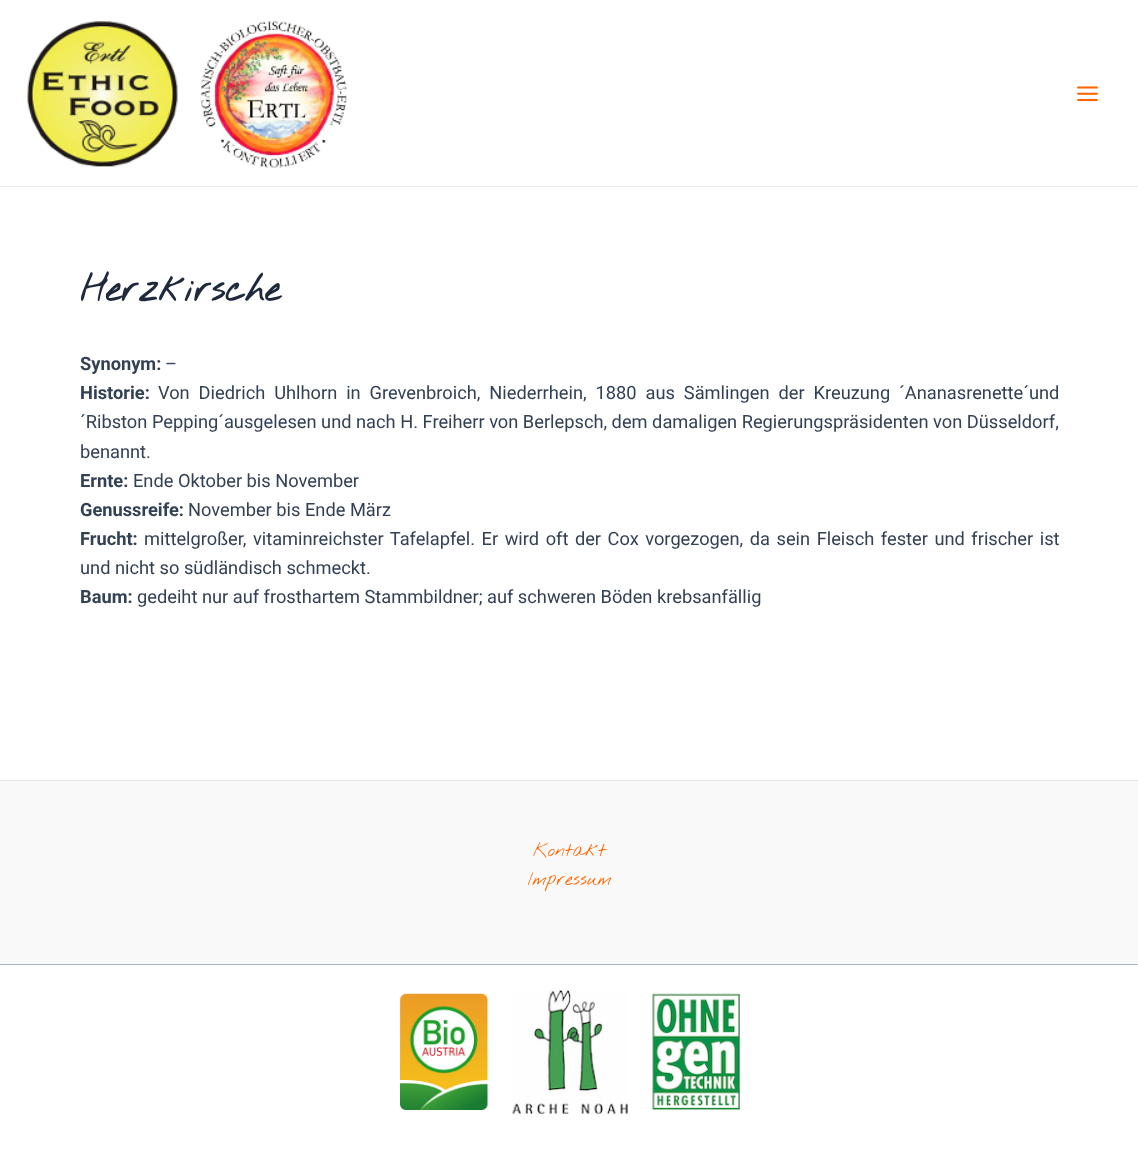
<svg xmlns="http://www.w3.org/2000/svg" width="1138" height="1163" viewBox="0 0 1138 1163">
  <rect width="100%" height="100%" fill="#ffffff"/>
  <rect x="0" y="186" width="1138" height="1" fill="#eaeaea"/>
  <image x="27" y="21" width="320" height="147" href="img1.png"/>
  <image x="1077" y="86" width="21" height="16" href="img2.png"/>
  <text x="80" y="301" font-family="Nothing You Could Do" font-size="36.5" font-weight="bold" fill="#1e293b">Herzkirsche</text>
  <text x="80" y="370" font-family="Roboto" font-size="18.25" font-weight="bold" fill="#334155">Synonym:</text>
  <text x="165" y="370" font-family="Roboto" font-size="18.25" fill="#334155">–</text>
  <text x="80" y="399" font-family="Roboto" font-size="18.25" font-weight="bold" fill="#334155">Historie:</text>
  <text x="158" y="399" word-spacing="4.4" font-family="Roboto" font-size="18.25" fill="#334155">Von Diedrich Uhlhorn in Grevenbroich, Niederrhein, 1880 aus Sämlingen der Kreuzung ´Ananasrenette´und</text>
  <text x="80" y="428" font-family="Roboto" font-size="18.25" fill="#334155">´Ribston Pepping´ausgelesen und nach H. Freiherr von Berlepsch, dem damaligen Regierungspräsidenten von Düsseldorf,</text>
  <text x="80" y="458" font-family="Roboto" font-size="18.25" fill="#334155">benannt.</text>
  <text x="80" y="487" font-family="Roboto" font-size="18.25" font-weight="bold" fill="#334155">Ernte:</text>
  <text x="133" y="487" font-family="Roboto" font-size="18.25" fill="#334155">Ende Oktober bis November</text>
  <text x="80" y="516" font-family="Roboto" font-size="18.25" font-weight="bold" fill="#334155">Genussreife:</text>
  <text x="188" y="516" font-family="Roboto" font-size="18.25" fill="#334155">November bis Ende März</text>
  <text x="80" y="545" font-family="Roboto" font-size="18.25" font-weight="bold" fill="#334155">Frucht:</text>
  <text x="144" y="545" word-spacing="2" font-family="Roboto" font-size="18.25" fill="#334155">mittelgroßer, vitaminreichster Tafelapfel. Er wird oft der Cox vorgezogen, da sein Fleisch fester und frischer ist</text>
  <text x="80" y="574" font-family="Roboto" font-size="18.25" fill="#334155">und nicht so südländisch schmeckt.</text>
  <text x="80" y="603" font-family="Roboto" font-size="18.25" font-weight="bold" fill="#334155">Baum:</text>
  <text x="137" y="603" font-family="Roboto" font-size="18.25" fill="#334155">gedeiht nur auf frosthartem Stammbildner; auf schweren Böden krebsanfällig</text>
  <rect x="0" y="781" width="1138" height="183" fill="#f9f9f9"/>
  <rect x="0" y="780" width="1138" height="1" fill="#e6e6e6"/>
  <text x="533" y="856" font-family="Nothing You Could Do" font-size="18.25" font-weight="100" fill="#ff6600">Kontakt</text>
  <text x="528" y="885" font-family="Nothing You Could Do" font-size="18.25" font-weight="100" fill="#ff6600">Impressum</text>
  <rect x="0" y="964" width="1138" height="1" fill="#adb6be"/>
  <image x="400" y="993" width="88" height="117" href="img3.png"/>
  <image x="512" y="990" width="116" height="124" href="img4.png"/>
  <image x="652" y="993" width="88" height="117" href="img5.png"/>
</svg>
